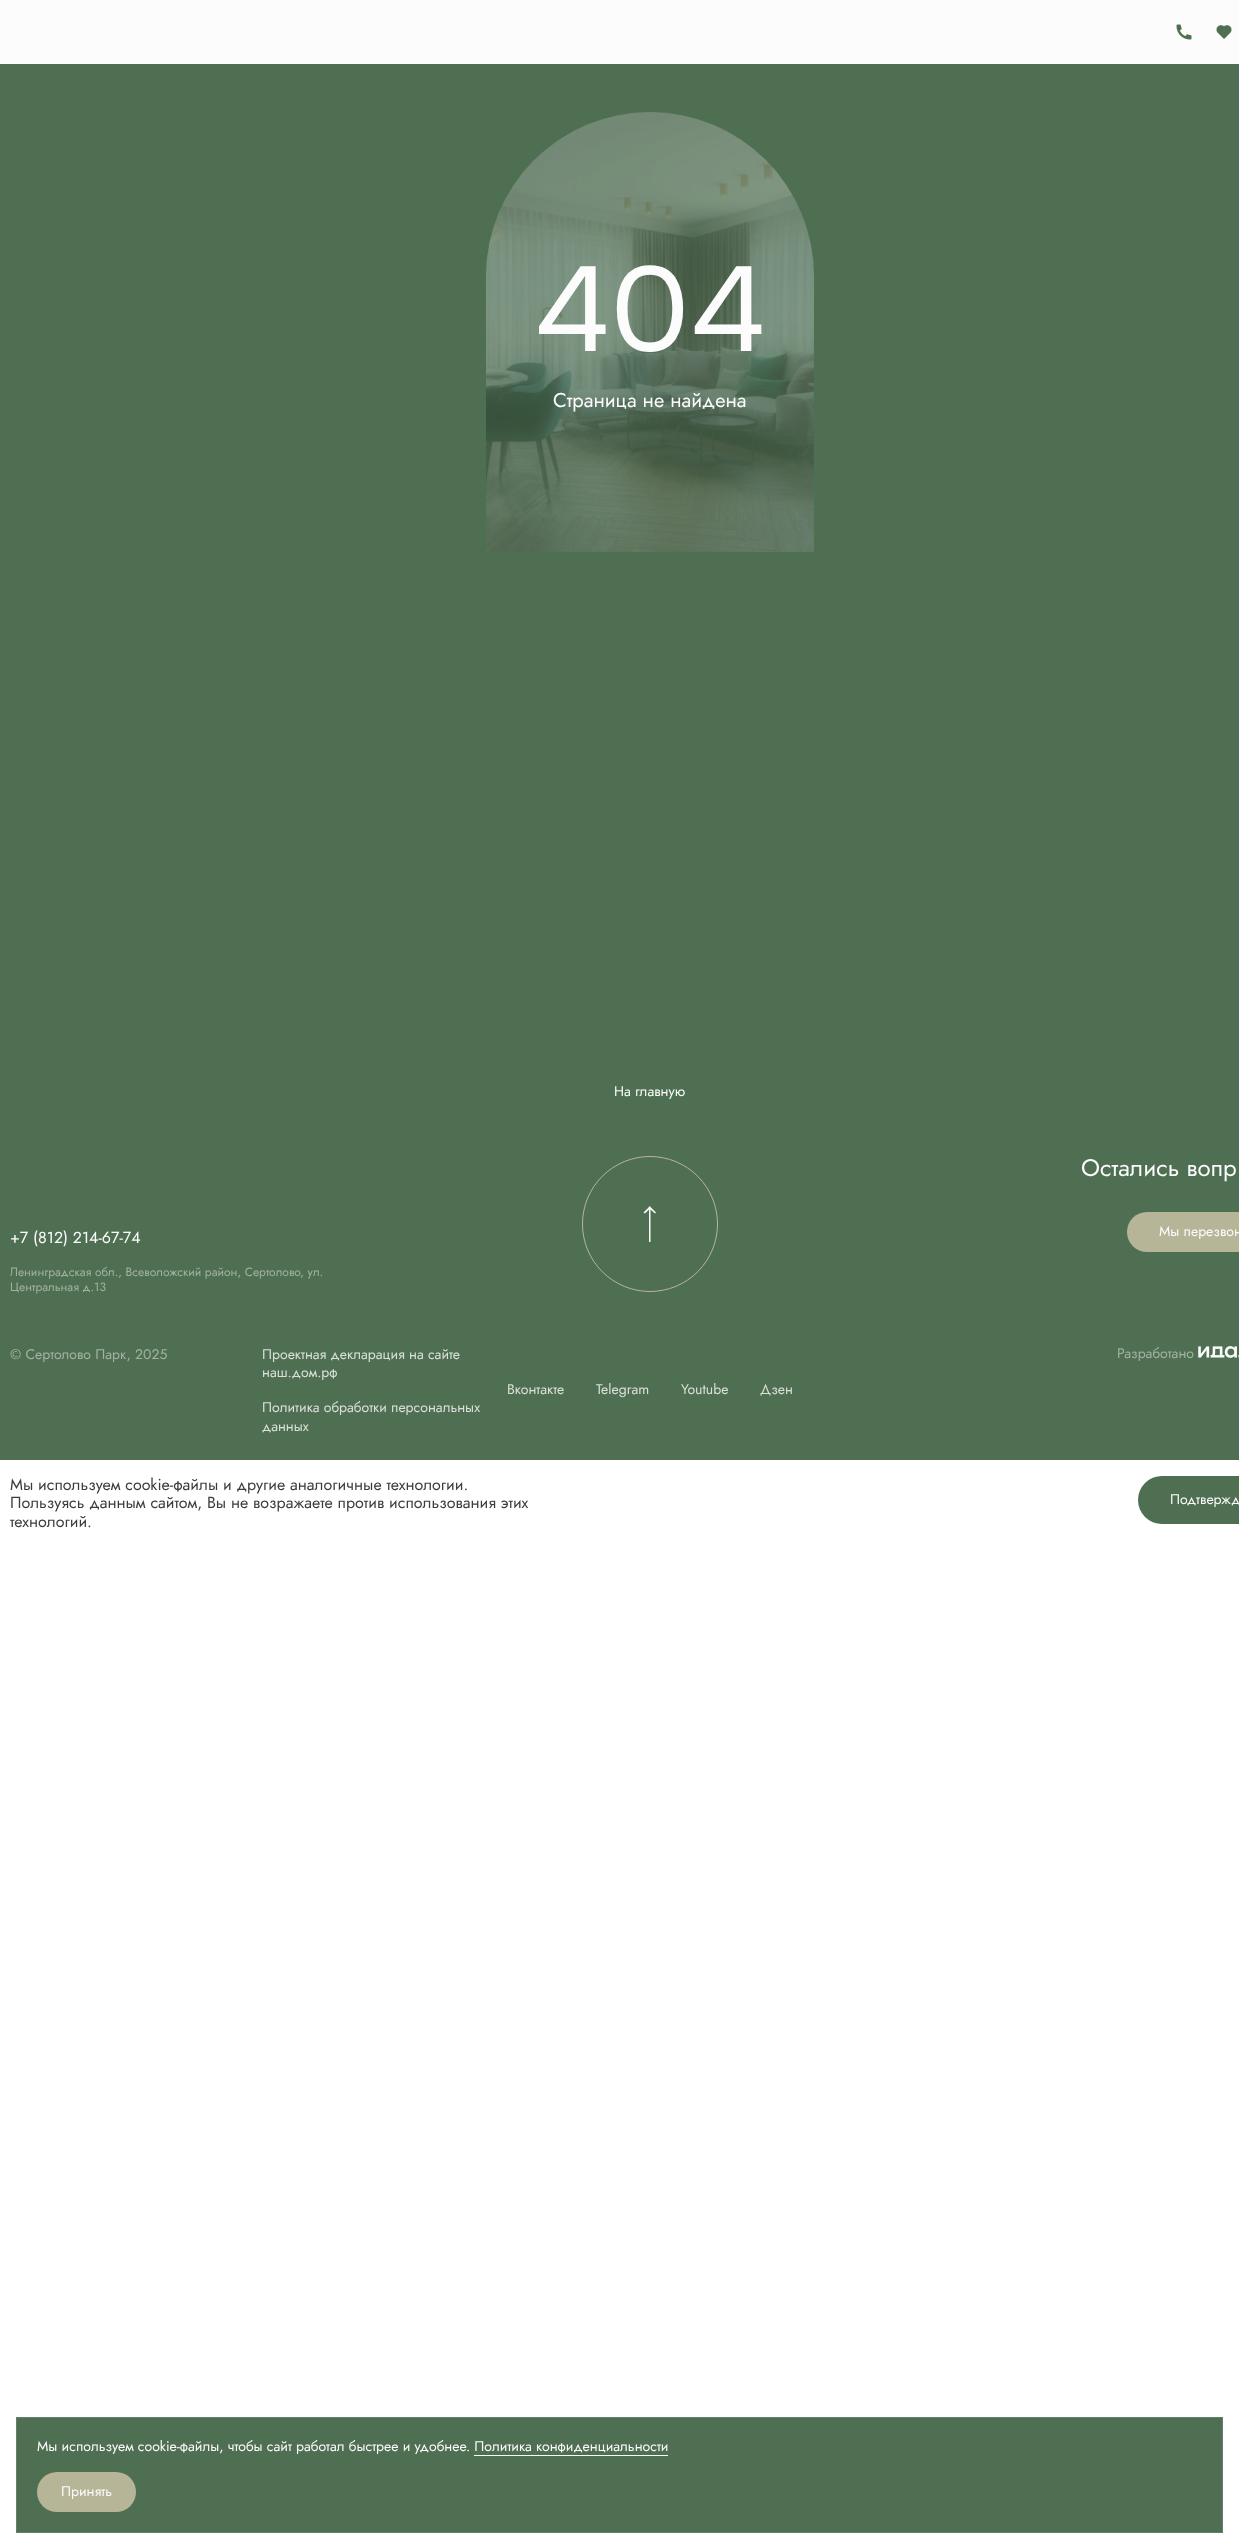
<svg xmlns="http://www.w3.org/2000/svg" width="1239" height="2545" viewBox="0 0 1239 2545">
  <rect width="100%" height="100%" fill="#ffffff"/>
  <rect x="0" y="0" width="1239" height="64" fill="#fcfcfc"/>
  <image x="1176" y="24" width="16" height="16" href="img1.png"/>
  <image x="1216" y="25" width="16" height="14" href="img2.png"/>
  <rect x="0" y="64" width="1239" height="1396" fill="#4f6f52"/>
  <image x="486" y="112" width="328" height="440" href="img3.png"/>
  <image x="486" y="112" width="328" height="440" href="img4.png"/>
  <text x="534" y="351" font-family="Onest" font-size="120" fill="#fcfcfc">404</text>
  <text x="553" y="407" font-family="Jost" font-size="20" fill="#fcfcfc">Страница не найдена</text>
  <text x="614" y="1096" font-family="Jost" font-size="14" fill="#fcfcfc">На главную</text>
  <circle cx="650" cy="1224" r="67.5" fill="none" stroke="#b7b597"/>
  <path d="M649 1207L649.5 1206L656 1212.5L655 1213.5L650.5 1209.5V1242H649V1209.5L645 1213.5L643.5 1212.5Z" fill="#fcfcfc"/>
  <text x="1081" y="1176" font-family="Jost" font-size="24" fill="#fcfcfc">Остались вопр</text>
  <rect x="1127" y="1212" width="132" height="40" rx="20" fill="#b7b597"/>
  <text x="1159" y="1236" font-family="Jost" font-size="14" fill="#fcfcfc">Мы перезвон</text>
  <text x="10" y="1243" font-family="Jost" font-size="16" fill="#fcfcfc">+7 (812) 214-67-74</text>
  <text x="10" y="1276" font-family="Jost" font-size="12" fill="#a2b3a4">Ленинградская обл., Всеволожский район, Сертолово, ул.</text>
  <text x="10" y="1291" font-family="Jost" font-size="12" fill="#a2b3a4">Центральная д.13</text>
  <text x="10" y="1359" font-family="Jost" font-size="14" fill="#a2b3a4">© Сертолово Парк, 2025</text>
  <text x="262" y="1359" font-family="Jost" font-size="14" fill="#d9e0da">Проектная декларация на сайте</text>
  <text x="262" y="1377" font-family="Jost" font-size="14" fill="#d9e0da">наш.дом.рф</text>
  <text x="262" y="1412" font-family="Jost" font-size="14" fill="#d9e0da">Политика обработки персональных</text>
  <text x="262" y="1431" font-family="Jost" font-size="14" fill="#d9e0da">данных</text>
  <text x="507" y="1394" font-family="Jost" font-size="14" fill="#d9e0da">Вконтакте</text>
  <text x="596" y="1394" font-family="Jost" font-size="14" fill="#d9e0da">Telegram</text>
  <text x="681" y="1394" font-family="Jost" font-size="14" fill="#d9e0da">Youtube</text>
  <text x="760" y="1394" font-family="Jost" font-size="14" fill="#d9e0da">Дзен</text>
  <text x="1117" y="1358" font-family="Jost" font-size="14" fill="#a2b3a4">Разработано</text>
  <image x="1198" y="1346" width="41" height="12" href="img5.png"/>
  <text x="10" y="1490" font-family="Jost" font-size="16" fill="#3c3c3d">Мы используем cookie-файлы и другие аналогичные технологии.</text>
  <text x="10" y="1508" font-family="Jost" font-size="16" fill="#3c3c3d">Пользуясь данным сайтом, Вы не возражаете против использования этих</text>
  <text x="10" y="1527" font-family="Jost" font-size="16" fill="#3c3c3d">технологий.</text>
  <rect x="1138" y="1476" width="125" height="48" rx="24" fill="#4f6f52"/>
  <text x="1170" y="1504" font-family="Jost" font-size="14" fill="#fcfcfc">Подтвержд</text>
  <rect x="16.5" y="2417.5" width="1206" height="115" fill="#4f6f52" stroke="#638066"/>
  <text x="37" y="2451" font-family="Jost" font-size="14" fill="#fcfcfc">Мы используем cookie-файлы, чтобы сайт работал быстрее и удобнее. Политика конфиденциальности</text>
  <rect x="474" y="2455" width="194" height="1" fill="#fcfcfc"/>
  <rect x="37" y="2472" width="99" height="40" rx="20" fill="#b7b597"/>
  <text x="61" y="2496" font-family="Jost" font-size="14" fill="#fcfcfc">Принять</text>
</svg>
